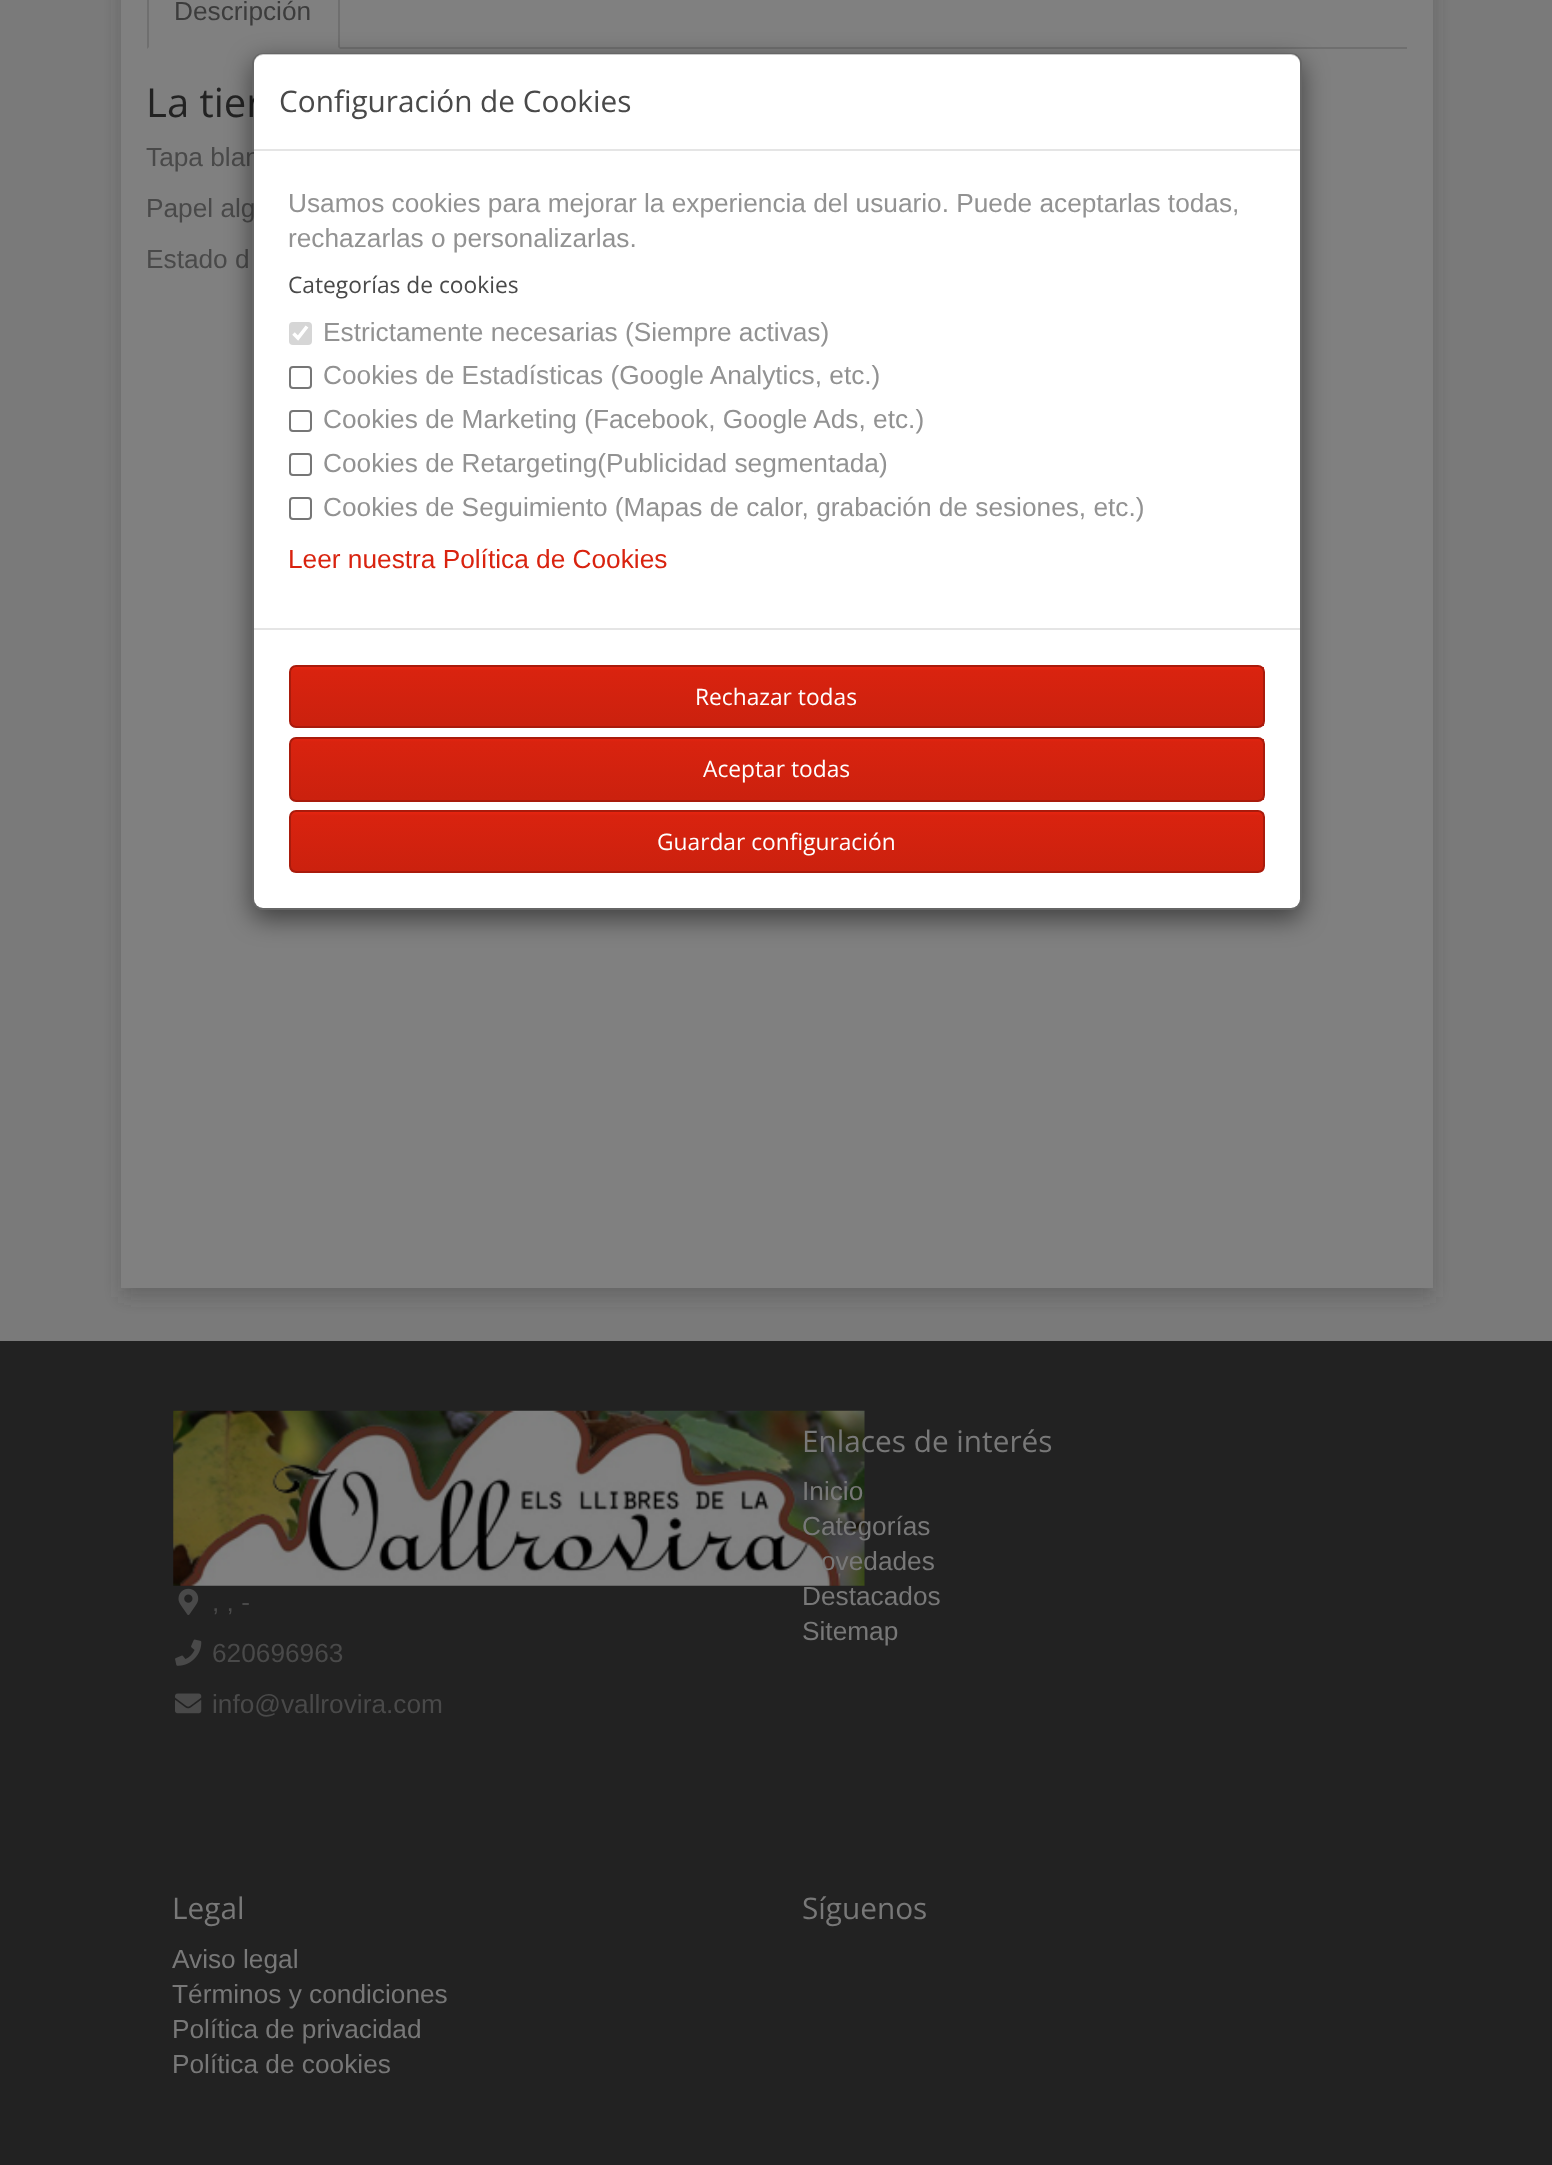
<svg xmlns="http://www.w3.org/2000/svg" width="1552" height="2165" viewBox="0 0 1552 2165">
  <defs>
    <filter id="blur1" x="-50%" y="-200%" width="200%" height="500%"><feGaussianBlur stdDeviation="9"/></filter>
    <clipPath id="clip1"><path d="M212 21H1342V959H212ZM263 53H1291C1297 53 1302 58 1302 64V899C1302 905 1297 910 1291 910H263C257 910 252 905 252 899V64C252 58 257 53 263 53Z" clip-rule="evenodd"/></clipPath>
    <filter id="blur2" x="-50%" y="-200%" width="200%" height="500%"><feGaussianBlur stdDeviation="13"/></filter>
    <linearGradient id="g1" gradientUnits="userSpaceOnUse" x1="777" y1="667" x2="777" y2="726"><stop offset="0" stop-color="#e72510"/><stop offset="0.06" stop-color="#d9230f"/><stop offset="1" stop-color="#cb210e"/></linearGradient>
    <linearGradient id="g2" gradientUnits="userSpaceOnUse" x1="777" y1="738" x2="777" y2="800"><stop offset="0" stop-color="#e72510"/><stop offset="0.06" stop-color="#d9230f"/><stop offset="1" stop-color="#cb210e"/></linearGradient>
    <clipPath id="clip2"><rect x="289" y="810" width="976" height="63" rx="7"/></clipPath>
    <linearGradient id="g3" gradientUnits="userSpaceOnUse" x1="777" y1="812" x2="777" y2="872"><stop offset="0" stop-color="#e72510"/><stop offset="0.06" stop-color="#d9230f"/><stop offset="1" stop-color="#cb210e"/></linearGradient>
  </defs>
  <rect width="100%" height="100%" fill="#7a7a7a"/>
  <rect x="121" y="-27" width="1312" height="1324" fill="#3d3d3d" fill-opacity="0.33" filter="url(#blur1)"/>
  <rect x="121" y="0" width="1312" height="1288" fill="#808080"/>
  <rect x="340" y="47" width="1067" height="2" fill="#6f6f6f"/>
  <path d="M340-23V49L338 47V-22L336-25L338-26Z" fill="#6f6f6f"/>
  <path d="M147 49L149 47V-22L150-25L149-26C148-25 147-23 147-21Z" fill="#6f6f6f"/>
  <text x="174" y="20" font-family="Liberation Sans" font-size="26.25" fill="#3c3c3c">Descripción</text>
  <text x="146" y="117" font-family="Open Sans" font-size="40" fill="#222222">La tier</text>
  <text x="146" y="166" font-family="Liberation Sans" font-size="26.25" fill="#494949">Tapa blan</text>
  <text x="146" y="217" font-family="Liberation Sans" font-size="26.25" fill="#494949">Papel alg</text>
  <text x="146" y="268" font-family="Liberation Sans" font-size="26.25" fill="#494949">Estado d</text>
  <g clip-path="url(#clip1)">
    <rect x="252" y="61" width="1050" height="858" rx="11" fill="#000000" fill-opacity="0.5" filter="url(#blur2)"/>
  </g>
  <rect x="254" y="54" width="1046" height="854" rx="9" fill="#ffffff"/>
  <rect x="253" y="54" width="1048" height="855" rx="10" fill="none" stroke="#000000" stroke-opacity="0.2" stroke-width="2"/>
  <rect x="254" y="149" width="1046" height="2" fill="#e5e5e5"/>
  <text x="279" y="112" font-family="Open Sans" font-size="29.75" fill="#494949">Configuración de Cookies</text>
  <text x="288" y="212" font-family="Liberation Sans" font-size="26.25" fill="#929292">Usamos cookies para mejorar la experiencia del usuario. Puede aceptarlas todas,</text>
  <text x="288" y="247" font-family="Liberation Sans" font-size="26.25" fill="#929292">rechazarlas o personalizarlas.</text>
  <text x="288" y="293" font-family="Open Sans" font-size="22.75" fill="#494949">Categorías de cookies</text>
  <rect x="289" y="322" width="23" height="23" rx="4" fill="#d6d6d6"/>
  <path d="M293.5 333.5L298 338L307 326.5" fill="none" stroke="#ffffff" stroke-width="3.6"/>
  <text x="323" y="341" font-family="Liberation Sans" font-size="26.25" fill="#929292">Estrictamente necesarias (Siempre activas)</text>
  <rect x="290" y="367" width="21" height="21" rx="3" fill="none" stroke="#767676" stroke-width="2"/>
  <text x="323" y="384" font-family="Liberation Sans" font-size="26.25" fill="#929292">Cookies de Estadísticas (Google Analytics, etc.)</text>
  <rect x="290" y="411" width="21" height="20" rx="3" fill="none" stroke="#767676" stroke-width="2"/>
  <text x="323" y="428" font-family="Liberation Sans" font-size="26.25" fill="#929292">Cookies de Marketing (Facebook, Google Ads, etc.)</text>
  <rect x="290" y="454" width="21" height="21" rx="3" fill="none" stroke="#767676" stroke-width="2"/>
  <text x="323" y="472" font-family="Liberation Sans" font-size="26.25" fill="#929292">Cookies de Retargeting(Publicidad segmentada)</text>
  <rect x="290" y="498" width="21" height="21" rx="3" fill="none" stroke="#767676" stroke-width="2"/>
  <text x="323" y="516" font-family="Liberation Sans" font-size="26.25" fill="#929292">Cookies de Seguimiento (Mapas de calor, grabación de sesiones, etc.)</text>
  <text x="288" y="568" font-family="Liberation Sans" font-size="26.25" fill="#d9230f">Leer nuestra Política de Cookies</text>
  <rect x="254" y="628" width="1046" height="2" fill="#e5e5e5"/>
  <rect x="291" y="667" width="973" height="59" fill="url(#g1)"/>
  <rect x="290" y="666" width="974" height="61" rx="6" fill="none" stroke="#a91b0c" stroke-width="2"/>
  <text x="695" y="705" font-family="Open Sans" font-size="22.75" fill="#ffffff">Rechazar todas</text>
  <rect x="291" y="739" width="973" height="61" fill="url(#g2)"/>
  <rect x="290" y="738" width="974" height="63" rx="6" fill="none" stroke="#a91b0c" stroke-width="2"/>
  <text x="703" y="777" font-family="Open Sans" font-size="22.75" fill="#ffffff">Aceptar todas</text>
  <g clip-path="url(#clip2)">
    <rect x="291" y="812" width="973" height="60" fill="url(#g3)"/>
  </g>
  <rect x="290" y="811" width="974" height="61" rx="6" fill="none" stroke="#a91b0c" stroke-width="2"/>
  <text x="657" y="850" font-family="Open Sans" font-size="22.75" fill="#ffffff">Guardar configuración</text>
  <rect x="0" y="1341" width="1552" height="824" fill="#222222"/>
  <image x="173" y="1410" width="692" height="176" href="img1.png"/>
  <text x="802" y="1452" font-family="Open Sans" font-size="29.75" fill="#787878">Enlaces de interés</text>
  <text x="802" y="1500" font-family="Liberation Sans" font-size="26.25" fill="#787878">Inicio</text>
  <text x="802" y="1535" font-family="Liberation Sans" font-size="26.25" fill="#787878">Categorías</text>
  <text x="821" y="1570" font-family="Liberation Sans" font-size="26.25" fill="#787878">ovedades</text>
  <text x="802" y="1605" font-family="Liberation Sans" font-size="26.25" fill="#787878">Destacados</text>
  <text x="802" y="1640" font-family="Liberation Sans" font-size="26.25" fill="#787878">Sitemap</text>
  <image x="178" y="1588" width="21" height="27" href="img2.png"/>
  <text x="212" y="1611" font-family="Liberation Sans" font-size="26.25" fill="#494949">, , -</text>
  <image x="175" y="1639" width="27" height="27" href="img3.png"/>
  <text x="212" y="1662" font-family="Liberation Sans" font-size="26.25" fill="#494949">620696963</text>
  <image x="175" y="1693" width="27" height="21" href="img4.png"/>
  <text x="212" y="1713" font-family="Liberation Sans" font-size="26.25" fill="#494949">info@vallrovira.com</text>
  <text x="172" y="1919" font-family="Open Sans" font-size="29.75" fill="#787878">Legal</text>
  <text x="172" y="1968" font-family="Liberation Sans" font-size="26.25" fill="#787878">Aviso legal</text>
  <text x="172" y="2003" font-family="Liberation Sans" font-size="26.25" fill="#787878">Términos y condiciones</text>
  <text x="172" y="2038" font-family="Liberation Sans" font-size="26.25" fill="#787878">Política de privacidad</text>
  <text x="172" y="2073" font-family="Liberation Sans" font-size="26.25" fill="#787878">Política de cookies</text>
  <text x="802" y="1919" font-family="Open Sans" font-size="29.75" fill="#787878">Síguenos</text>
</svg>
